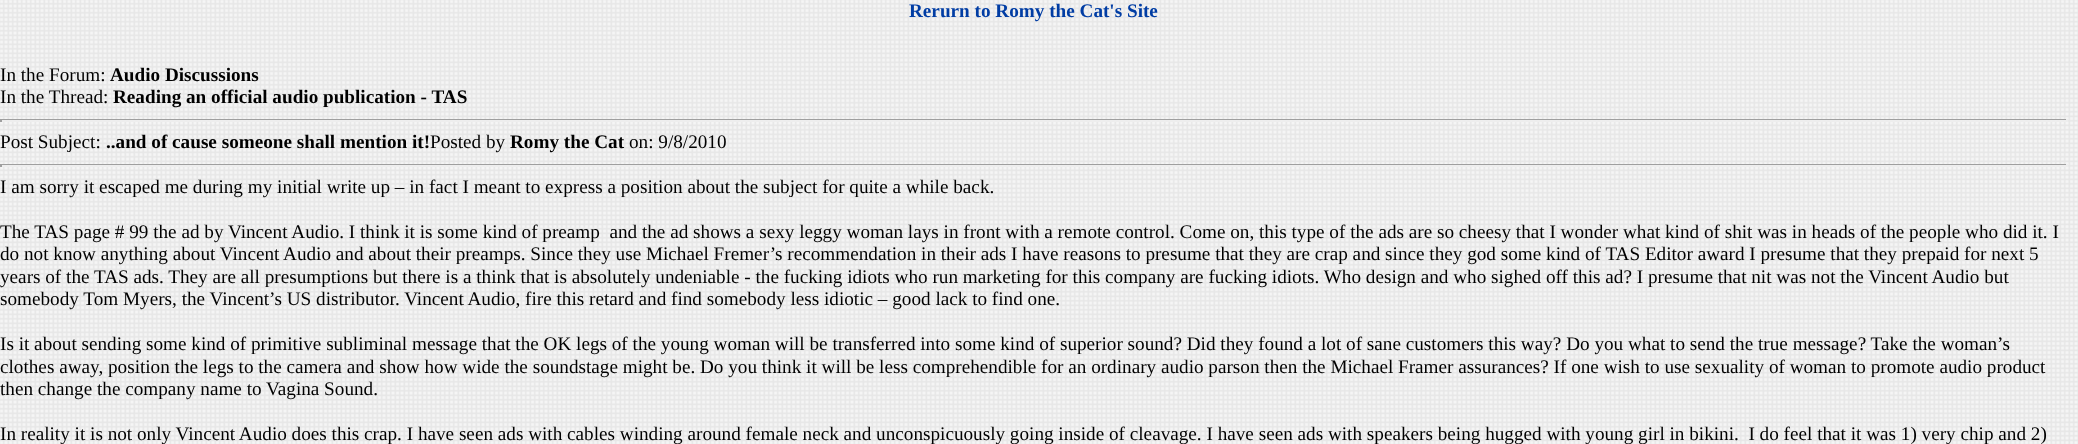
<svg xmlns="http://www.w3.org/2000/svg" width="2078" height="444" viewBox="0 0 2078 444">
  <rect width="100%" height="100%" fill="#ffffff"/>
  <image x="0" y="0" width="2078" height="444" href="img1.png"/>
  <text x="909" y="17" font-family="Liberation Serif" font-size="19.2" font-weight="bold" fill="#013da4">Rerurn to Romy the Cat's Site</text>
  <text x="0" y="81" font-family="Liberation Serif" font-size="19.2" fill="#000000">In the Forum:</text>
  <text x="110" y="81" font-family="Liberation Serif" font-size="19.2" font-weight="bold" fill="#000000">Audio Discussions</text>
  <text x="0" y="103" font-family="Liberation Serif" font-size="19.2" fill="#000000">In the Thread:</text>
  <text x="113" y="103" font-family="Liberation Serif" font-size="19.2" font-weight="bold" fill="#000000">Reading an official audio publication - TAS</text>
  <rect x="0" y="119" width="2067" height="1" fill="#9f9f9f"/>
  <rect x="2066" y="119" width="2" height="3" fill="#eeeeee"/>
  <rect x="0" y="120" width="2067" height="2" fill="#eeeeee"/>
  <rect x="0" y="119" width="2" height="3" fill="#9f9f9f"/>
  <text x="0" y="148" font-family="Liberation Serif" font-size="19.2" fill="#000000">Post Subject:</text>
  <text x="106" y="148" font-family="Liberation Serif" font-size="19.2" font-weight="bold" fill="#000000">..and of cause someone shall mention it!</text>
  <text x="430" y="148" font-family="Liberation Serif" font-size="19.2" fill="#000000">Posted by</text>
  <text x="510" y="148" font-family="Liberation Serif" font-size="19.2" font-weight="bold" fill="#000000">Romy the Cat</text>
  <text x="629" y="148" font-family="Liberation Serif" font-size="19.2" fill="#000000">on: 9/8/2010</text>
  <rect x="0" y="164" width="2067" height="1" fill="#9f9f9f"/>
  <rect x="2066" y="164" width="2" height="3" fill="#eeeeee"/>
  <rect x="0" y="165" width="2067" height="2" fill="#eeeeee"/>
  <rect x="0" y="164" width="2" height="3" fill="#9f9f9f"/>
  <text x="0" y="193" font-family="Liberation Serif" font-size="19.2" fill="#000000">I am sorry it escaped me during my initial write up – in fact I meant to express a position about the subject for quite a while back.</text>
  <text x="0" y="238" font-family="Liberation Serif" font-size="19.2" fill="#000000" xml:space="preserve">The TAS page # 99 the ad by Vincent Audio. I think it is some kind of preamp  and the ad shows a sexy leggy woman lays in front with a remote control. Come on, this type of the ads are so cheesy that I wonder what kind of shit was in heads of the people who did it. I</text>
  <text x="0" y="260" font-family="Liberation Serif" font-size="19.2" fill="#000000">do not know anything about Vincent Audio and about their preamps. Since they use Michael Fremer’s recommendation in their ads I have reasons to presume that they are crap and since they god some kind of TAS Editor award I presume that they prepaid for next 5</text>
  <text x="0" y="283" font-family="Liberation Serif" font-size="19.2" fill="#000000">years of the TAS ads. They are all presumptions but there is a think that is absolutely undeniable - the fucking idiots who run marketing for this company are fucking idiots. Who design and who sighed off this ad? I presume that nit was not the Vincent Audio but</text>
  <text x="0" y="305" font-family="Liberation Serif" font-size="19.2" fill="#000000">somebody Tom Myers, the Vincent’s US distributor. Vincent Audio, fire this retard and find somebody less idiotic – good lack to find one.</text>
  <text x="0" y="350" font-family="Liberation Serif" font-size="19.2" fill="#000000">Is it about sending some kind of primitive subliminal message that the OK legs of the young woman will be transferred into some kind of superior sound? Did they found a lot of sane customers this way? Do you what to send the true message? Take the woman’s</text>
  <text x="0" y="373" font-family="Liberation Serif" font-size="19.2" fill="#000000">clothes away, position the legs to the camera and show how wide the soundstage might be. Do you think it will be less comprehendible for an ordinary audio parson then the Michael Framer assurances? If one wish to use sexuality of woman to promote audio product</text>
  <text x="0" y="395" font-family="Liberation Serif" font-size="19.2" fill="#000000">then change the company name to Vagina Sound.</text>
  <text x="0" y="440" font-family="Liberation Serif" font-size="19.2" fill="#000000" xml:space="preserve">In reality it is not only Vincent Audio does this crap. I have seen ads with cables winding around female neck and unconspicuously going inside of cleavage. I have seen ads with speakers being hugged with young girl in bikini.  I do feel that it was 1) very chip and 2)</text>
</svg>
